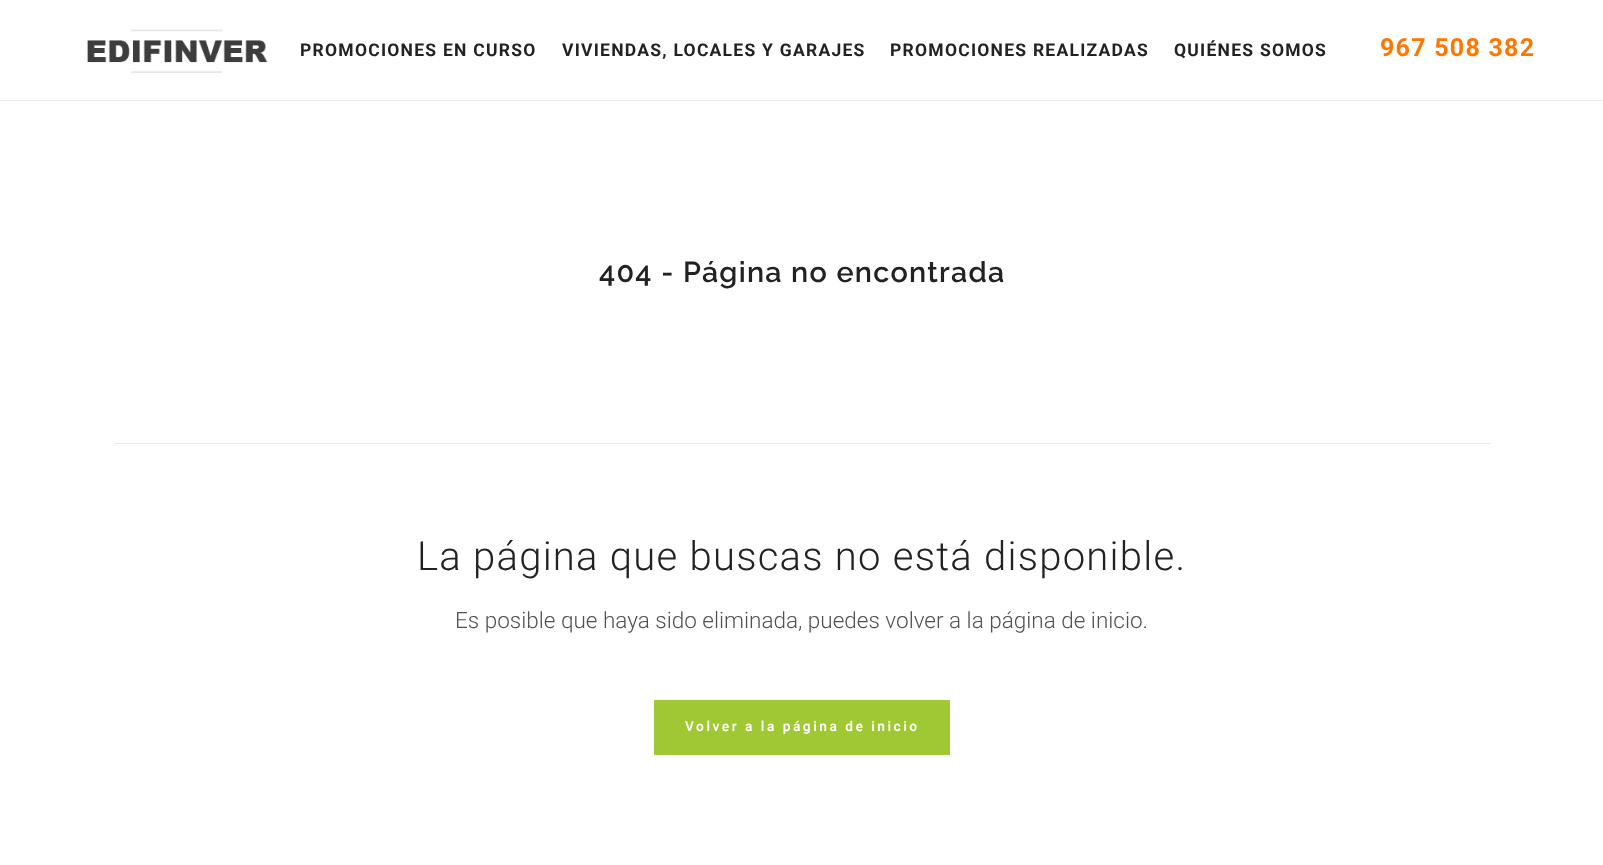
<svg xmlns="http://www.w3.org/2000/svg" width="1603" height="865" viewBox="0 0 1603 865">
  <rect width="100%" height="100%" fill="#ffffff"/>
  <rect x="0" y="100" width="1603" height="1" fill="#eaeaea"/>
  <image x="87" y="29" width="181" height="44" href="img1.png"/>
  <text x="300" y="56" font-family="Roboto" font-size="17.5" font-weight="bold" letter-spacing="1.25" fill="#222222">PROMOCIONES EN CURSO</text>
  <text x="562" y="56" font-family="Roboto" font-size="17.5" font-weight="bold" letter-spacing="1.25" fill="#222222">VIVIENDAS, LOCALES Y GARAJES</text>
  <text x="890" y="56" font-family="Roboto" font-size="17.5" font-weight="bold" letter-spacing="1.25" fill="#222222">PROMOCIONES REALIZADAS</text>
  <text x="1174" y="56" font-family="Roboto" font-size="17.5" font-weight="bold" letter-spacing="1.25" fill="#222222">QUIÉNES SOMOS</text>
  <text x="1380" y="56" font-family="Roboto" font-size="25" font-weight="bold" letter-spacing="1.25" fill="#ff7700">967 508 382</text>
  <text x="599" y="282" font-family="Raleway" font-size="28.75" font-weight="600" letter-spacing="1.25" fill="#222222">404 - Página no encontrada</text>
  <rect x="115" y="443" width="1375" height="1" fill="#eaeaea"/>
  <text x="417" y="570" font-family="Roboto" font-size="40" font-weight="300" letter-spacing="1.25" fill="#222222">La página que buscas no está disponible.</text>
  <text x="455" y="628" font-family="Roboto" font-size="22.5" font-weight="300" fill="#515151">Es posible que haya sido eliminada, puedes volver a la página de inicio.</text>
  <rect x="654" y="700" width="296" height="55" fill="#9fc832"/>
  <text x="685" y="731" font-family="Roboto" font-size="13.75" font-weight="600" letter-spacing="2.5" fill="#ffffff">Volver a la página de inicio</text>
</svg>
